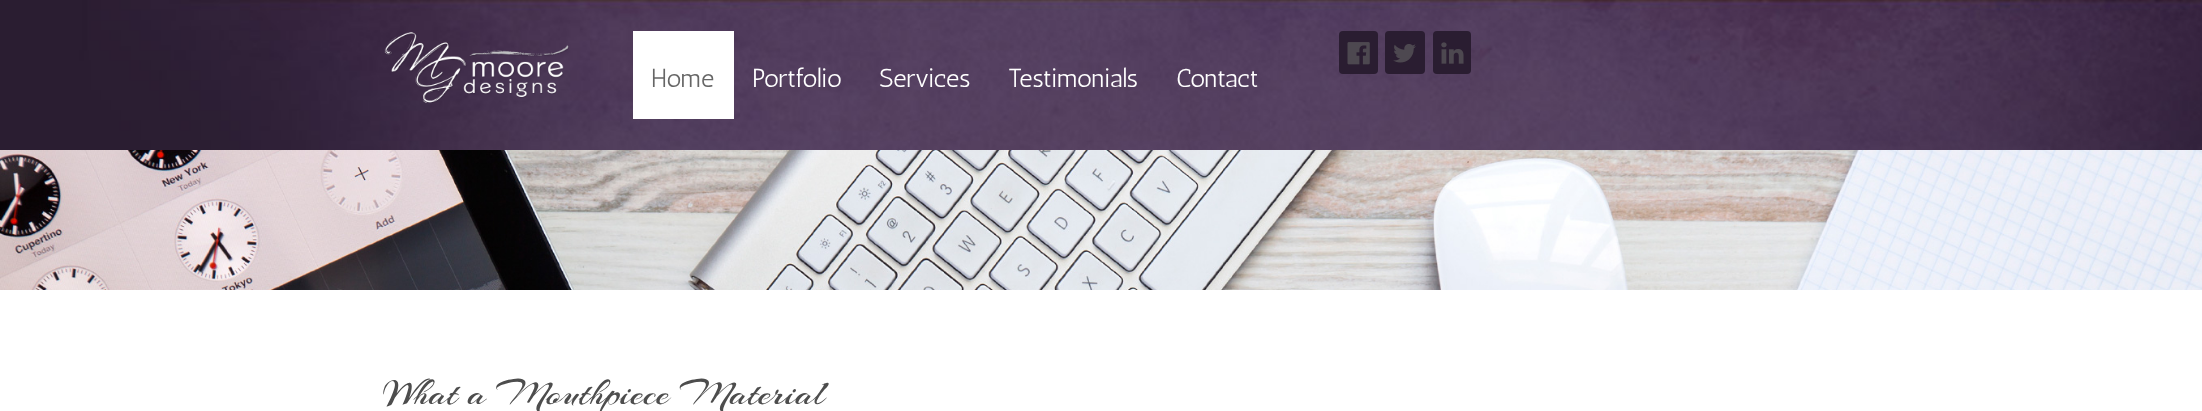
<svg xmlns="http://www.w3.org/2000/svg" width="2202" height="411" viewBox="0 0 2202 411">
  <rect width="100%" height="100%" fill="#ffffff"/>
  <image x="0" y="0" width="2202" height="150" href="img1.png"/>
  <image x="384" y="32" width="185" height="71" href="img2.png"/>
  <rect x="633" y="31" width="101" height="88" fill="#ffffff"/>
  <text x="651" y="87" font-family="Antic" font-size="26" fill="#666666">Home</text>
  <text x="752" y="87" font-family="Antic" font-size="26" fill="#ffffff">Portfolio</text>
  <text x="879" y="87" font-family="Antic" font-size="26" fill="#ffffff">Services</text>
  <text x="1008" y="87" font-family="Antic" font-size="26" fill="#ffffff">Testimonials</text>
  <text x="1176" y="87" font-family="Antic" font-size="26" fill="#ffffff">Contact</text>
  <rect x="1339" y="31" width="39" height="43" rx="4" fill="#2a1d31"/>
  <image x="1347" y="42" width="23" height="23" href="img3.png"/>
  <rect x="1385" y="31" width="40" height="43" rx="4" fill="#2a1d31"/>
  <image x="1393" y="44" width="23" height="19" href="img4.png"/>
  <rect x="1433" y="31" width="38" height="43" rx="4" fill="#2a1d31"/>
  <image x="1441" y="42" width="23" height="22" href="img5.png"/>
  <image x="0" y="150" width="2202" height="140" href="img6.png"/>
  <text x="383" y="404" font-family="Arizonia" font-size="38" fill="#4d4d4d">What a Mouthpiece Material</text>
</svg>
